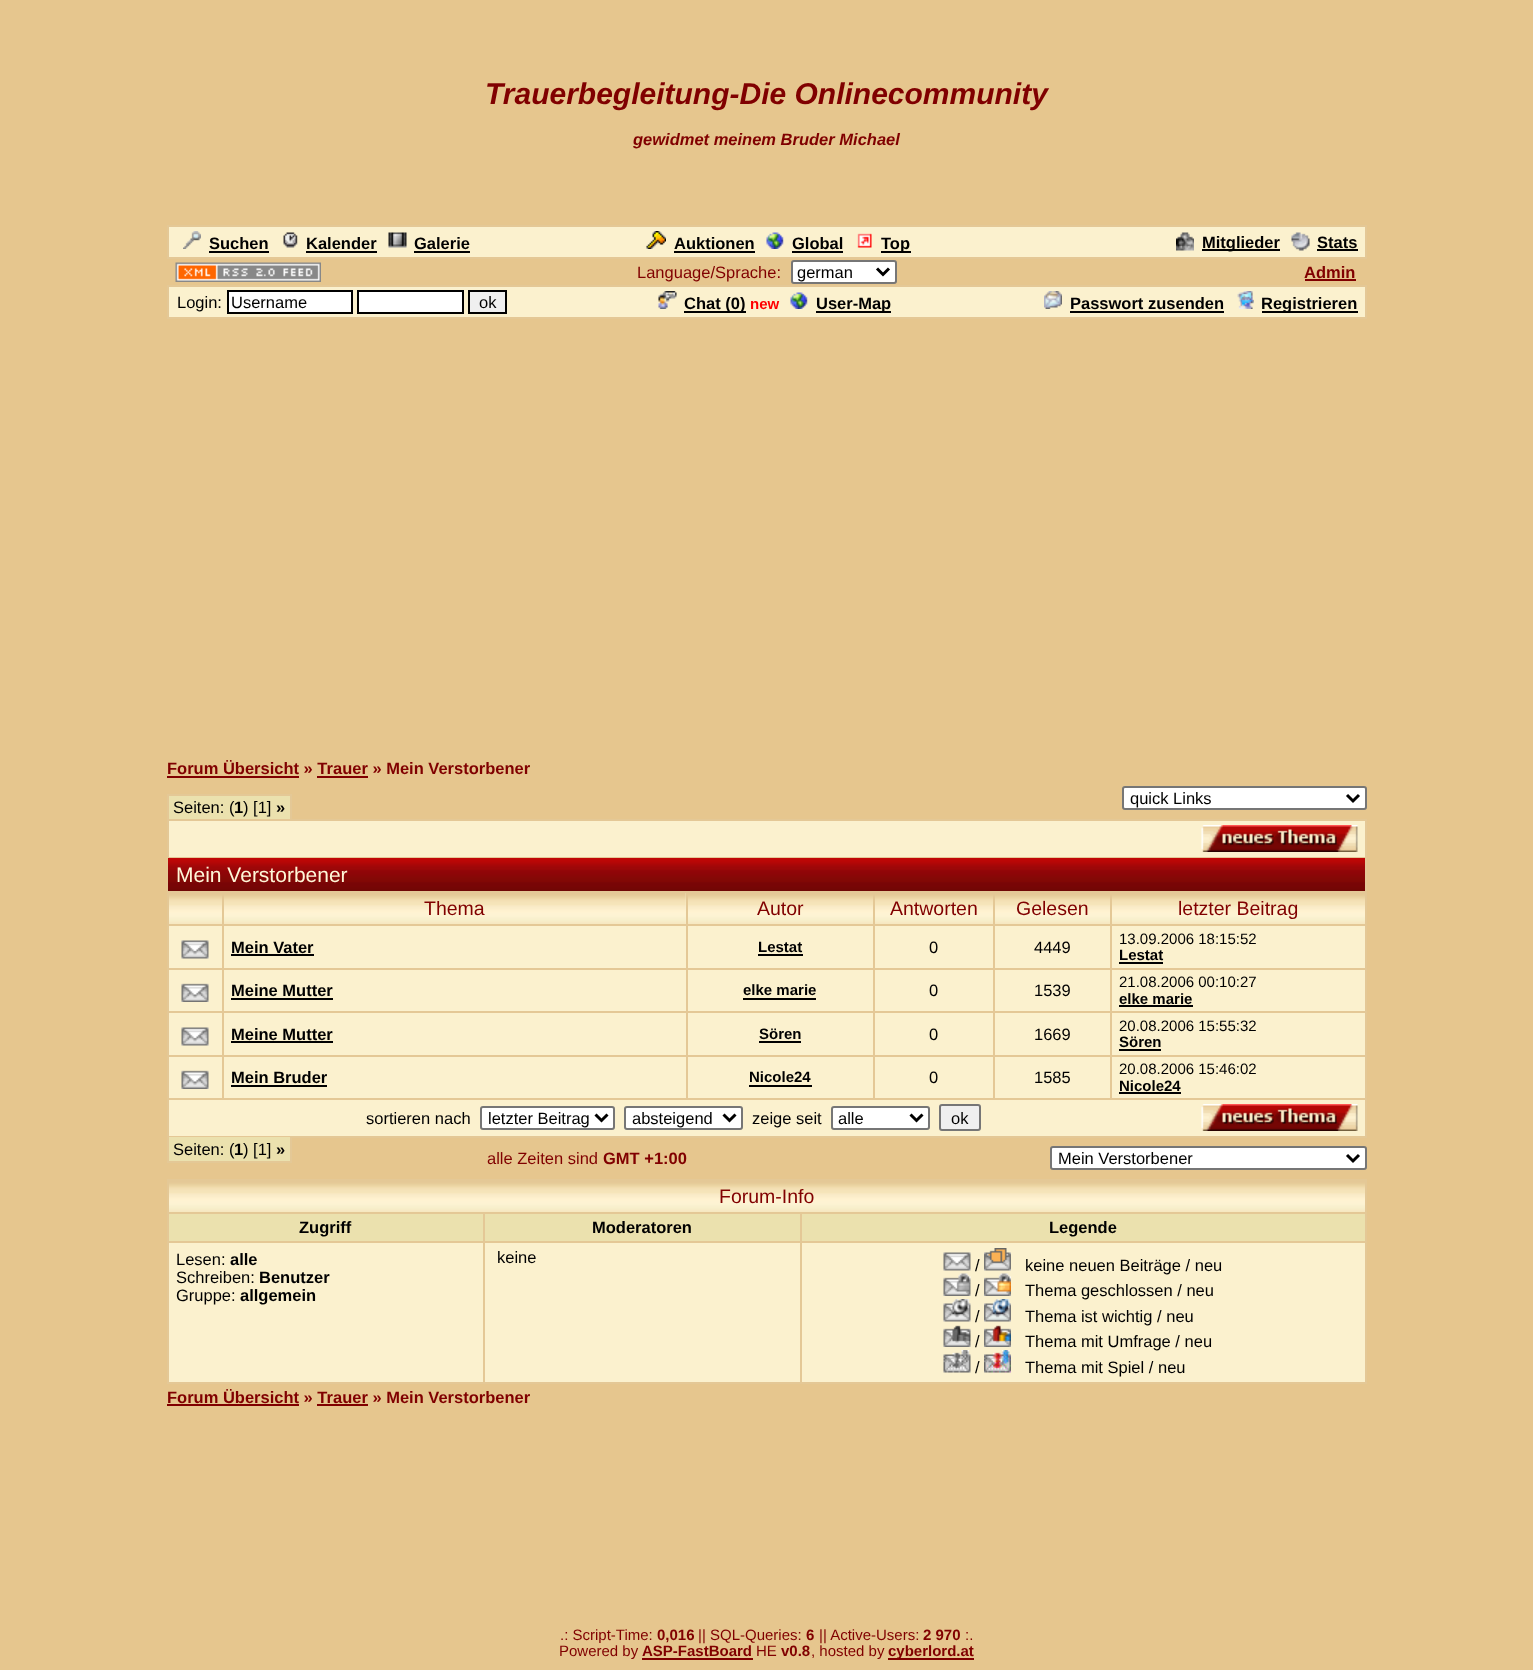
<svg xmlns="http://www.w3.org/2000/svg" width="1533" height="1670" viewBox="0 0 1533 1670">
  <rect width="100%" height="100%" fill="#e6c68e"/>
  <text x="485" y="104" font-family="Liberation Sans" font-size="30" font-weight="bold" font-style="italic" fill="#800000">Trauerbegleitung-Die Onlinecommunity</text>
  <text x="633" y="145" font-family="Liberation Sans" font-size="16.5" font-weight="bold" font-style="italic" fill="#800000">gewidmet meinem Bruder Michael</text>
  <rect x="169" y="227" width="1196" height="30" fill="#fbf1ce"/>
  <rect x="167" y="225" width="1200" height="2" fill="#e4c896"/>
  <rect x="1365" y="225" width="2" height="33" fill="#e4c896"/>
  <rect x="167" y="257" width="1200" height="2" fill="#e4c896"/>
  <rect x="167" y="225" width="2" height="33" fill="#e4c896"/>
  <image x="183" y="231" width="18" height="18" href="img1.png"/>
  <text x="209" y="249" font-family="Liberation Sans" font-size="16.5" font-weight="bold" fill="#000000">Suchen</text>
  <rect x="209" y="251" width="60" height="2" fill="#000000"/>
  <image x="283" y="232" width="15" height="16" href="img2.png"/>
  <text x="306" y="249" font-family="Liberation Sans" font-size="16.5" font-weight="bold" fill="#000000">Kalender</text>
  <rect x="306" y="251" width="71" height="2" fill="#000000"/>
  <image x="388" y="232" width="19" height="16" href="img3.png"/>
  <text x="414" y="249" font-family="Liberation Sans" font-size="16.5" font-weight="bold" fill="#000000">Galerie</text>
  <rect x="414" y="251" width="56" height="2" fill="#000000"/>
  <image x="646" y="231" width="20" height="18" href="img4.png"/>
  <text x="674" y="249" font-family="Liberation Sans" font-size="16.5" font-weight="bold" fill="#000000">Auktionen</text>
  <rect x="674" y="251" width="81" height="2" fill="#000000"/>
  <image x="766" y="232" width="18" height="17" href="img5.png"/>
  <text x="792" y="249" font-family="Liberation Sans" font-size="16.5" font-weight="bold" fill="#000000">Global</text>
  <rect x="792" y="251" width="51" height="2" fill="#000000"/>
  <image x="857" y="233" width="15" height="15" href="img6.png"/>
  <rect x="881" y="251" width="30" height="2" fill="#000000"/>
  <text x="881" y="249" font-family="Liberation Sans" font-size="16.5" font-weight="bold" fill="#000000">Top</text>
  <image x="1176" y="232" width="18" height="19" href="img7.png"/>
  <rect x="1202" y="249" width="78" height="2" fill="#000000"/>
  <text x="1202" y="248" font-family="Liberation Sans" font-size="16.5" font-weight="bold" fill="#000000">Mitglieder</text>
  <image x="1291" y="232" width="19" height="19" href="img8.png"/>
  <text x="1317" y="248" font-family="Liberation Sans" font-size="16.5" font-weight="bold" fill="#000000">Stats</text>
  <rect x="1317" y="249" width="41" height="2" fill="#000000"/>
  <image x="175" y="262" width="146" height="20" href="img9.png"/>
  <text x="637" y="278" font-family="Liberation Sans" font-size="16.5" fill="#800000">Language/Sprache:</text>
  <rect x="792" y="261" width="104" height="22" rx="2" fill="#ffffff" stroke="#767676" stroke-width="2"/>
  <path d="M877 268.5L883 274.5L889 268.5" fill="none" stroke="#000000" stroke-width="3"/>
  <text x="797" y="278" font-family="Liberation Sans" font-size="16.5" fill="#000000">german</text>
  <text x="1304" y="278" font-family="Liberation Sans" font-size="16.5" font-weight="bold" fill="#800000">Admin</text>
  <rect x="1305" y="279" width="51" height="2" fill="#800000"/>
  <rect x="169" y="287" width="1196" height="30" fill="#fbf1ce"/>
  <rect x="167" y="285" width="1200" height="2" fill="#e4c896"/>
  <rect x="1365" y="285" width="2" height="33" fill="#e4c896"/>
  <rect x="167" y="317" width="1200" height="2" fill="#e4c896"/>
  <rect x="167" y="285" width="2" height="33" fill="#e4c896"/>
  <text x="177" y="308" font-family="Liberation Sans" font-size="16.5" fill="#000000">Login:</text>
  <rect x="228" y="291" width="124" height="22" fill="#ffffff" stroke="#000000" stroke-width="2"/>
  <text x="231" y="308" font-family="Liberation Sans" font-size="16.5" fill="#000000">Username</text>
  <rect x="358" y="291" width="105" height="22" fill="#ffffff" stroke="#000000" stroke-width="2"/>
  <rect x="469" y="291" width="37" height="22" fill="#efefef" stroke="#000000" stroke-width="2"/>
  <text x="479" y="308" font-family="Liberation Sans" font-size="16.5" fill="#000000">ok</text>
  <image x="658" y="291" width="19" height="18" href="img10.png"/>
  <rect x="684" y="311" width="62" height="2" fill="#000000"/>
  <text x="684" y="309" font-family="Liberation Sans" font-size="16.5" font-weight="bold" fill="#000000">Chat (0)</text>
  <text x="750" y="309" font-family="Liberation Sans" font-size="15" font-weight="bold" fill="#ff0000">new</text>
  <image x="790" y="292" width="18" height="17" href="img5.png"/>
  <rect x="816" y="311" width="75" height="2" fill="#000000"/>
  <text x="816" y="309" font-family="Liberation Sans" font-size="16.5" font-weight="bold" fill="#000000">User-Map</text>
  <image x="1044" y="291" width="18" height="18" href="img11.png"/>
  <text x="1070" y="309" font-family="Liberation Sans" font-size="16.5" font-weight="bold" fill="#000000">Passwort zusenden</text>
  <rect x="1070" y="311" width="154" height="2" fill="#000000"/>
  <image x="1237" y="291" width="17" height="18" href="img12.png"/>
  <rect x="1262" y="311" width="96" height="2" fill="#000000"/>
  <text x="1261" y="309" font-family="Liberation Sans" font-size="16.5" font-weight="bold" fill="#000000">Registrieren</text>
  <text x="167" y="774" font-family="Liberation Sans" font-size="16.5" font-weight="bold" fill="#800000">Forum Übersicht » Trauer » Mein Verstorbener</text>
  <rect x="167" y="776" width="132" height="2" fill="#800000"/>
  <rect x="317" y="776" width="51" height="2" fill="#800000"/>
  <rect x="169" y="796" width="121" height="23" fill="#ebe1ae"/>
  <rect x="167" y="794" width="124" height="2" fill="#e4c896"/>
  <rect x="290" y="794" width="2" height="25" fill="#e4c896"/>
  <rect x="167" y="794" width="2" height="25" fill="#e4c896"/>
  <text x="173" y="813" font-family="Liberation Sans" font-size="16.5" fill="#000000">Seiten: (</text>
  <text x="234" y="813" font-family="Liberation Sans" font-size="16.5" font-weight="bold" fill="#000000">1</text>
  <text x="243" y="813" font-family="Liberation Sans" font-size="16.5" fill="#000000">) [1]</text>
  <text x="276" y="813" font-family="Liberation Sans" font-size="16.5" font-weight="bold" fill="#000000">»</text>
  <rect x="1123" y="787" width="243" height="22" rx="2" fill="#ffffff" stroke="#767676" stroke-width="2"/>
  <path d="M1347 795L1353 801L1359 795" fill="none" stroke="#000000" stroke-width="3"/>
  <text x="1130" y="804" font-family="Liberation Sans" font-size="16.5" fill="#000000">quick Links</text>
  <rect x="169" y="821" width="1196" height="36" fill="#fbf1ce"/>
  <rect x="167" y="819" width="1200" height="2" fill="#e4c896"/>
  <rect x="1365" y="819" width="2" height="39" fill="#e4c896"/>
  <rect x="167" y="857" width="1200" height="1" fill="#e4c896"/>
  <rect x="167" y="819" width="2" height="39" fill="#e4c896"/>
  <image x="1201" y="825" width="157" height="27" href="img13.png"/>
  <rect x="169" y="893" width="1196" height="205" fill="#fbf1ce"/>
  <rect x="1365" y="858" width="2" height="279" fill="#e4c896"/>
  <rect x="1110" y="1098" width="257" height="2" fill="#e4c896"/>
  <rect x="1110" y="1055" width="2" height="45" fill="#e4c896"/>
  <rect x="1110" y="1055" width="257" height="2" fill="#e4c896"/>
  <rect x="1110" y="1011" width="2" height="45" fill="#e4c896"/>
  <rect x="1110" y="1011" width="257" height="2" fill="#e4c896"/>
  <rect x="1110" y="968" width="2" height="45" fill="#e4c896"/>
  <rect x="1110" y="968" width="257" height="2" fill="#e4c896"/>
  <rect x="1110" y="924" width="2" height="45" fill="#e4c896"/>
  <rect x="1110" y="924" width="257" height="2" fill="#e4c896"/>
  <rect x="1110" y="891" width="2" height="35" fill="#e4c896"/>
  <rect x="993" y="1098" width="119" height="2" fill="#e4c896"/>
  <rect x="993" y="1055" width="2" height="45" fill="#e4c896"/>
  <rect x="993" y="1055" width="119" height="2" fill="#e4c896"/>
  <rect x="993" y="1011" width="2" height="45" fill="#e4c896"/>
  <rect x="993" y="1011" width="119" height="2" fill="#e4c896"/>
  <rect x="993" y="968" width="2" height="45" fill="#e4c896"/>
  <rect x="993" y="968" width="119" height="2" fill="#e4c896"/>
  <rect x="993" y="924" width="2" height="45" fill="#e4c896"/>
  <rect x="993" y="924" width="119" height="2" fill="#e4c896"/>
  <rect x="993" y="891" width="2" height="35" fill="#e4c896"/>
  <rect x="873" y="1098" width="122" height="2" fill="#e4c896"/>
  <rect x="873" y="1055" width="2" height="45" fill="#e4c896"/>
  <rect x="873" y="1055" width="122" height="2" fill="#e4c896"/>
  <rect x="873" y="1011" width="2" height="45" fill="#e4c896"/>
  <rect x="873" y="1011" width="122" height="2" fill="#e4c896"/>
  <rect x="873" y="968" width="2" height="45" fill="#e4c896"/>
  <rect x="873" y="968" width="122" height="2" fill="#e4c896"/>
  <rect x="873" y="924" width="2" height="45" fill="#e4c896"/>
  <rect x="873" y="924" width="122" height="2" fill="#e4c896"/>
  <rect x="873" y="891" width="2" height="35" fill="#e4c896"/>
  <rect x="686" y="1098" width="189" height="2" fill="#e4c896"/>
  <rect x="686" y="1055" width="2" height="45" fill="#e4c896"/>
  <rect x="686" y="1055" width="189" height="2" fill="#e4c896"/>
  <rect x="686" y="1011" width="2" height="45" fill="#e4c896"/>
  <rect x="686" y="1011" width="189" height="2" fill="#e4c896"/>
  <rect x="686" y="968" width="2" height="45" fill="#e4c896"/>
  <rect x="686" y="968" width="189" height="2" fill="#e4c896"/>
  <rect x="686" y="924" width="2" height="45" fill="#e4c896"/>
  <rect x="686" y="924" width="189" height="2" fill="#e4c896"/>
  <image x="224" y="893" width="462" height="31" href="img16.png"/>
  <image x="685" y="893" width="188" height="31" href="img17.png"/>
  <rect x="686" y="891" width="2" height="35" fill="#e4c896"/>
  <rect x="222" y="1098" width="465" height="2" fill="#e4c896"/>
  <rect x="222" y="1055" width="2" height="45" fill="#e4c896"/>
  <rect x="222" y="1055" width="465" height="2" fill="#e4c896"/>
  <rect x="222" y="1011" width="2" height="45" fill="#e4c896"/>
  <rect x="222" y="1011" width="465" height="2" fill="#e4c896"/>
  <rect x="222" y="968" width="2" height="45" fill="#e4c896"/>
  <rect x="222" y="968" width="465" height="2" fill="#e4c896"/>
  <rect x="222" y="924" width="2" height="45" fill="#e4c896"/>
  <rect x="222" y="924" width="465" height="2" fill="#e4c896"/>
  <rect x="222" y="891" width="2" height="35" fill="#e4c896"/>
  <rect x="167" y="1098" width="57" height="2" fill="#e4c896"/>
  <rect x="167" y="1055" width="2" height="45" fill="#e4c896"/>
  <rect x="167" y="1055" width="57" height="2" fill="#e4c896"/>
  <rect x="167" y="1011" width="2" height="45" fill="#e4c896"/>
  <rect x="167" y="1011" width="57" height="2" fill="#e4c896"/>
  <rect x="167" y="968" width="2" height="45" fill="#e4c896"/>
  <rect x="167" y="968" width="57" height="2" fill="#e4c896"/>
  <rect x="167" y="924" width="2" height="45" fill="#e4c896"/>
  <rect x="167" y="924" width="57" height="2" fill="#e4c896"/>
  <rect x="167" y="891" width="2" height="35" fill="#e4c896"/>
  <rect x="167" y="891" width="1200" height="2" fill="#e4c896"/>
  <rect x="167" y="858" width="2" height="35" fill="#e4c896"/>
  <image x="168" y="858" width="1197" height="33" href="img14.png"/>
  <text x="176" y="882" font-family="Liberation Sans" font-size="21" fill="#fff7d8">Mein Verstorbener</text>
  <image x="169" y="893" width="53" height="31" href="img15.png"/>
  <text x="424" y="915" font-family="Liberation Sans" font-size="19.5" fill="#800000">Thema</text>
  <text x="757" y="915" font-family="Liberation Sans" font-size="19.5" fill="#800000">Autor</text>
  <image x="875" y="893" width="118" height="31" href="img18.png"/>
  <text x="890" y="915" font-family="Liberation Sans" font-size="19.5" fill="#800000">Antworten</text>
  <image x="995" y="893" width="115" height="31" href="img19.png"/>
  <text x="1016" y="915" font-family="Liberation Sans" font-size="19.5" fill="#800000">Gelesen</text>
  <image x="1112" y="893" width="253" height="31" href="img20.png"/>
  <text x="1178" y="915" font-family="Liberation Sans" font-size="19.5" fill="#800000">letzter Beitrag</text>
  <image x="181" y="940" width="28" height="19" href="img21.png"/>
  <text x="231" y="953" font-family="Liberation Sans" font-size="16.5" font-weight="bold" fill="#000000">Mein Vater</text>
  <rect x="231" y="954" width="83" height="2" fill="#000000"/>
  <text x="758" y="952" font-family="Liberation Sans" font-size="15" font-weight="bold" fill="#000000">Lestat</text>
  <rect x="758" y="954" width="45" height="2" fill="#000000"/>
  <text x="929" y="953" font-family="Liberation Sans" font-size="16.5" fill="#000000">0</text>
  <text x="1034" y="953" font-family="Liberation Sans" font-size="16.5" fill="#000000">4449</text>
  <text x="1119" y="944" font-family="Liberation Sans" font-size="15" fill="#000000">13.09.2006 18:15:52</text>
  <text x="1119" y="960" font-family="Liberation Sans" font-size="15" font-weight="bold" fill="#000000">Lestat</text>
  <rect x="1119" y="962" width="44" height="2" fill="#000000"/>
  <image x="181" y="983" width="28" height="19" href="img22.png"/>
  <text x="231" y="996" font-family="Liberation Sans" font-size="16.5" font-weight="bold" fill="#000000">Meine Mutter</text>
  <rect x="231" y="998" width="102" height="2" fill="#000000"/>
  <text x="743" y="995" font-family="Liberation Sans" font-size="15" font-weight="bold" fill="#000000">elke marie</text>
  <rect x="743" y="998" width="73" height="2" fill="#000000"/>
  <text x="929" y="996" font-family="Liberation Sans" font-size="16.5" fill="#000000">0</text>
  <text x="1034" y="996" font-family="Liberation Sans" font-size="16.5" fill="#000000">1539</text>
  <text x="1119" y="987" font-family="Liberation Sans" font-size="15" fill="#000000">21.08.2006 00:10:27</text>
  <text x="1119" y="1004" font-family="Liberation Sans" font-size="15" font-weight="bold" fill="#000000">elke marie</text>
  <rect x="1119" y="1005" width="74" height="2" fill="#000000"/>
  <image x="181" y="1027" width="28" height="19" href="img21.png"/>
  <text x="231" y="1040" font-family="Liberation Sans" font-size="16.5" font-weight="bold" fill="#000000">Meine Mutter</text>
  <rect x="231" y="1041" width="102" height="2" fill="#000000"/>
  <text x="759" y="1039" font-family="Liberation Sans" font-size="15" font-weight="bold" fill="#000000">Sören</text>
  <rect x="759" y="1041" width="42" height="2" fill="#000000"/>
  <text x="929" y="1040" font-family="Liberation Sans" font-size="16.5" fill="#000000">0</text>
  <text x="1034" y="1040" font-family="Liberation Sans" font-size="16.5" fill="#000000">1669</text>
  <text x="1119" y="1031" font-family="Liberation Sans" font-size="15" fill="#000000">20.08.2006 15:55:32</text>
  <text x="1119" y="1047" font-family="Liberation Sans" font-size="15" font-weight="bold" fill="#000000">Sören</text>
  <rect x="1119" y="1049" width="42" height="2" fill="#000000"/>
  <image x="181" y="1070" width="28" height="19" href="img22.png"/>
  <text x="231" y="1083" font-family="Liberation Sans" font-size="16.5" font-weight="bold" fill="#000000">Mein Bruder</text>
  <rect x="231" y="1085" width="96" height="2" fill="#000000"/>
  <text x="749" y="1082" font-family="Liberation Sans" font-size="15" font-weight="bold" fill="#000000">Nicole24</text>
  <rect x="749" y="1085" width="63" height="2" fill="#000000"/>
  <text x="929" y="1083" font-family="Liberation Sans" font-size="16.5" fill="#000000">0</text>
  <text x="1034" y="1083" font-family="Liberation Sans" font-size="16.5" fill="#000000">1585</text>
  <text x="1119" y="1074" font-family="Liberation Sans" font-size="15" fill="#000000">20.08.2006 15:46:02</text>
  <text x="1119" y="1091" font-family="Liberation Sans" font-size="15" font-weight="bold" fill="#000000">Nicole24</text>
  <rect x="1119" y="1092" width="62" height="2" fill="#000000"/>
  <rect x="169" y="1100" width="1196" height="36" fill="#fbf1ce"/>
  <rect x="167" y="1136" width="1200" height="2" fill="#e4c896"/>
  <rect x="167" y="1100" width="2" height="37" fill="#e4c896"/>
  <text x="366" y="1124" font-family="Liberation Sans" font-size="16.5" fill="#000000">sortieren nach</text>
  <rect x="481" y="1107" width="133" height="22" rx="2" fill="#ffffff" stroke="#767676" stroke-width="2"/>
  <path d="M595.5 1114.5L601.5 1120.5L607.5 1114.5" fill="none" stroke="#000000" stroke-width="3"/>
  <text x="488" y="1124" font-family="Liberation Sans" font-size="16.5" fill="#000000">letzter Beitrag</text>
  <rect x="625" y="1107" width="117" height="22" rx="2" fill="#ffffff" stroke="#767676" stroke-width="2"/>
  <path d="M723.5 1114.5L729.5 1120.5L735.5 1114.5" fill="none" stroke="#000000" stroke-width="3"/>
  <text x="632" y="1124" font-family="Liberation Sans" font-size="16.5" fill="#000000">absteigend</text>
  <text x="752" y="1124" font-family="Liberation Sans" font-size="16.5" fill="#000000">zeige seit</text>
  <rect x="832" y="1107" width="97" height="22" rx="2" fill="#ffffff" stroke="#767676" stroke-width="2"/>
  <path d="M910.5 1114.5L916.5 1120.5L922.5 1114.5" fill="none" stroke="#000000" stroke-width="3"/>
  <text x="838" y="1124" font-family="Liberation Sans" font-size="16.5" fill="#000000">alle</text>
  <rect x="940" y="1105" width="40" height="25" rx="2" fill="#efefef" stroke="#767676" stroke-width="2"/>
  <text x="951" y="1124" font-family="Liberation Sans" font-size="16.5" fill="#000000">ok</text>
  <image x="1201" y="1104" width="157" height="27" href="img13.png"/>
  <rect x="169" y="1137" width="121" height="24" fill="#ebe1ae"/>
  <rect x="290" y="1137" width="2" height="26" fill="#e4c896"/>
  <rect x="167" y="1161" width="124" height="2" fill="#e4c896"/>
  <rect x="167" y="1137" width="2" height="26" fill="#e4c896"/>
  <text x="173" y="1155" font-family="Liberation Sans" font-size="16.5" fill="#000000">Seiten: (</text>
  <text x="234" y="1155" font-family="Liberation Sans" font-size="16.5" font-weight="bold" fill="#000000">1</text>
  <text x="243" y="1155" font-family="Liberation Sans" font-size="16.5" fill="#000000">) [1]</text>
  <text x="276" y="1155" font-family="Liberation Sans" font-size="16.5" font-weight="bold" fill="#000000">»</text>
  <text x="487" y="1164" font-family="Liberation Sans" font-size="16.5" fill="#800000">alle Zeiten sind</text>
  <text x="603" y="1164" font-family="Liberation Sans" font-size="16.5" font-weight="bold" fill="#800000">GMT +1:00</text>
  <rect x="1051" y="1147" width="315" height="22" rx="2" fill="#ffffff" stroke="#767676" stroke-width="2"/>
  <path d="M1347 1155L1353 1161L1359 1155" fill="none" stroke="#000000" stroke-width="3"/>
  <text x="1058" y="1164" font-family="Liberation Sans" font-size="16.5" fill="#000000">Mein Verstorbener</text>
  <rect x="169" y="1243" width="1196" height="139" fill="#fbf1ce"/>
  <image x="169" y="1181" width="1196" height="31" href="img23.png"/>
  <rect x="167" y="1179" width="1200" height="2" fill="#e4c896"/>
  <rect x="800" y="1212" width="567" height="2" fill="#e4c896"/>
  <rect x="800" y="1241" width="567" height="2" fill="#e4c896"/>
  <rect x="1365" y="1241" width="2" height="142" fill="#e4c896"/>
  <rect x="1365" y="1212" width="2" height="30" fill="#e4c896"/>
  <rect x="1365" y="1179" width="2" height="35" fill="#e4c896"/>
  <rect x="169" y="1214" width="1196" height="27" fill="#ebe1ae"/>
  <rect x="800" y="1382" width="567" height="2" fill="#e4c896"/>
  <rect x="800" y="1241" width="2" height="142" fill="#e4c896"/>
  <rect x="483" y="1241" width="318" height="2" fill="#e4c896"/>
  <rect x="800" y="1212" width="2" height="30" fill="#e4c896"/>
  <rect x="483" y="1212" width="318" height="2" fill="#e4c896"/>
  <rect x="483" y="1382" width="318" height="2" fill="#e4c896"/>
  <rect x="483" y="1241" width="2" height="142" fill="#e4c896"/>
  <rect x="167" y="1241" width="318" height="2" fill="#e4c896"/>
  <rect x="483" y="1212" width="2" height="30" fill="#e4c896"/>
  <rect x="167" y="1212" width="318" height="2" fill="#e4c896"/>
  <rect x="167" y="1382" width="318" height="2" fill="#e4c896"/>
  <rect x="167" y="1241" width="2" height="142" fill="#e4c896"/>
  <rect x="167" y="1212" width="2" height="30" fill="#e4c896"/>
  <rect x="167" y="1179" width="2" height="35" fill="#e4c896"/>
  <text x="719" y="1203" font-family="Liberation Sans" font-size="19.5" fill="#800000">Forum-Info</text>
  <text x="299" y="1233" font-family="Liberation Sans" font-size="16.5" font-weight="bold" fill="#000000">Zugriff</text>
  <text x="592" y="1233" font-family="Liberation Sans" font-size="16.5" font-weight="bold" fill="#000000">Moderatoren</text>
  <text x="1049" y="1233" font-family="Liberation Sans" font-size="16.5" font-weight="bold" fill="#000000">Legende</text>
  <text x="176" y="1265" font-family="Liberation Sans" font-size="16.5" fill="#000000">Lesen:</text>
  <text x="230" y="1265" font-family="Liberation Sans" font-size="16.5" font-weight="bold" fill="#000000">alle</text>
  <text x="176" y="1283" font-family="Liberation Sans" font-size="16.5" fill="#000000">Schreiben:</text>
  <text x="259" y="1283" font-family="Liberation Sans" font-size="16.5" font-weight="bold" fill="#000000">Benutzer</text>
  <text x="176" y="1301" font-family="Liberation Sans" font-size="16.5" fill="#000000">Gruppe:</text>
  <text x="240" y="1301" font-family="Liberation Sans" font-size="16.5" font-weight="bold" fill="#000000">allgemein</text>
  <text x="497" y="1263" font-family="Liberation Sans" font-size="16.5" fill="#000000">keine</text>
  <image x="943" y="1252" width="28" height="19" href="img21.png"/>
  <text x="975" y="1271" font-family="Liberation Sans" font-size="16.5" fill="#000000">/</text>
  <image x="984" y="1248" width="27" height="23" href="img24.png"/>
  <text x="1025" y="1271" font-family="Liberation Sans" font-size="16.5" fill="#000000">keine neuen Beiträge / neu</text>
  <image x="943" y="1273" width="28" height="23" href="img25.png"/>
  <text x="975" y="1296" font-family="Liberation Sans" font-size="16.5" fill="#000000">/</text>
  <image x="984" y="1273" width="27" height="23" href="img26.png"/>
  <text x="1025" y="1296" font-family="Liberation Sans" font-size="16.5" fill="#000000">Thema geschlossen / neu</text>
  <image x="943" y="1299" width="28" height="23" href="img27.png"/>
  <text x="975" y="1322" font-family="Liberation Sans" font-size="16.5" fill="#000000">/</text>
  <image x="984" y="1299" width="27" height="23" href="img28.png"/>
  <text x="1025" y="1322" font-family="Liberation Sans" font-size="16.5" fill="#000000">Thema ist wichtig / neu</text>
  <image x="943" y="1325" width="28" height="22" href="img29.png"/>
  <text x="975" y="1347" font-family="Liberation Sans" font-size="16.5" fill="#000000">/</text>
  <image x="984" y="1325" width="27" height="22" href="img30.png"/>
  <text x="1025" y="1347" font-family="Liberation Sans" font-size="16.5" fill="#000000">Thema mit Umfrage / neu</text>
  <image x="943" y="1350" width="28" height="23" href="img31.png"/>
  <text x="975" y="1373" font-family="Liberation Sans" font-size="16.5" fill="#000000">/</text>
  <image x="984" y="1350" width="27" height="23" href="img32.png"/>
  <text x="1025" y="1373" font-family="Liberation Sans" font-size="16.5" fill="#000000">Thema mit Spiel / neu</text>
  <text x="167" y="1403" font-family="Liberation Sans" font-size="16.5" font-weight="bold" fill="#800000">Forum Übersicht » Trauer » Mein Verstorbener</text>
  <rect x="167" y="1404" width="132" height="2" fill="#800000"/>
  <rect x="317" y="1404" width="51" height="2" fill="#800000"/>
  <text x="560" y="1640" font-family="Liberation Sans" font-size="15" fill="#800000">.: Script-Time:</text>
  <text x="657" y="1640" font-family="Liberation Sans" font-size="15" font-weight="bold" fill="#800000">0,016</text>
  <text x="698" y="1640" font-family="Liberation Sans" font-size="15" fill="#800000">|| SQL-Queries:</text>
  <text x="806" y="1640" font-family="Liberation Sans" font-size="15" font-weight="bold" fill="#800000">6</text>
  <text x="819" y="1640" font-family="Liberation Sans" font-size="15" fill="#800000">|| Active-Users:</text>
  <text x="923" y="1640" font-family="Liberation Sans" font-size="15" font-weight="bold" fill="#800000">2 970</text>
  <text x="965" y="1640" font-family="Liberation Sans" font-size="15" fill="#800000">:.</text>
  <text x="559" y="1656" font-family="Liberation Sans" font-size="15" fill="#800000">Powered by</text>
  <rect x="642" y="1658" width="111" height="2" fill="#800000"/>
  <text x="642" y="1656" font-family="Liberation Sans" font-size="15" font-weight="bold" fill="#800000">ASP-FastBoard</text>
  <text x="756" y="1656" font-family="Liberation Sans" font-size="15" fill="#800000">HE</text>
  <text x="781" y="1656" font-family="Liberation Sans" font-size="15" font-weight="bold" fill="#800000">v0.8</text>
  <text x="811" y="1656" font-family="Liberation Sans" font-size="15" fill="#800000">, hosted by</text>
  <rect x="888" y="1658" width="86" height="2" fill="#800000"/>
  <text x="888" y="1656" font-family="Liberation Sans" font-size="15" font-weight="bold" fill="#800000">cyberlord.at</text>
</svg>
